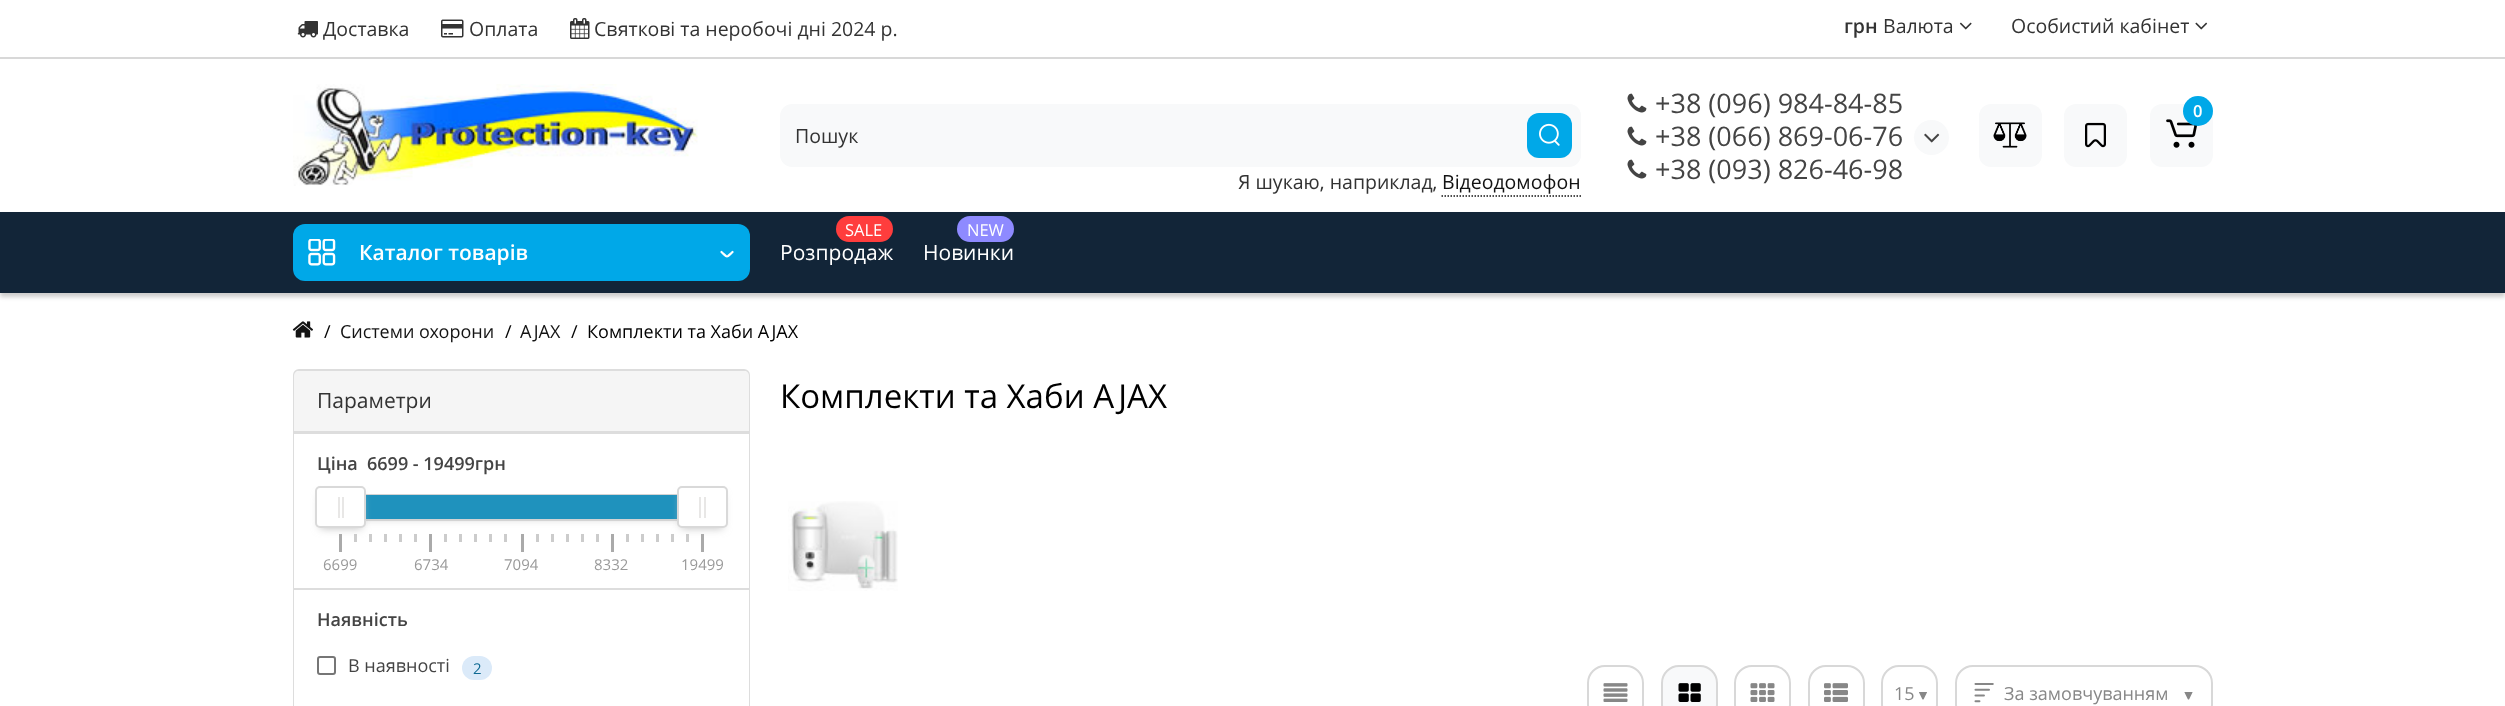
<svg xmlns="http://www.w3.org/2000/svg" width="2505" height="706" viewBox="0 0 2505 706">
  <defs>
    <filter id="blur1" x="-50%" y="-200%" width="200%" height="500%"><feGaussianBlur stdDeviation="2"/></filter>
    <filter id="blur2" x="-50%" y="-200%" width="200%" height="500%"><feGaussianBlur stdDeviation="4.5"/></filter>
  </defs>
  <rect width="100%" height="100%" fill="#ffffff"/>
  <rect x="0" y="57" width="2505" height="2" fill="#d8d8d8"/>
  <image x="297" y="21" width="21" height="17" href="img1.png"/>
  <text x="323" y="36" font-family="Open Sans" font-size="19.5" fill="#333333">Доставка</text>
  <image x="441" y="19" width="23" height="19" href="img2.png"/>
  <text x="469" y="36" font-family="Open Sans" font-size="19.5" fill="#333333">Оплата</text>
  <image x="570" y="18" width="20" height="21" href="img3.png"/>
  <text x="594" y="36" font-family="Open Sans" font-size="19.5" fill="#333333">Святкові та неробочі дні 2024 р.</text>
  <text x="1844" y="33" font-family="Open Sans" font-size="19.5" font-weight="600" fill="#333333">грн</text>
  <text x="1883" y="33" font-family="Open Sans" font-size="19.5" fill="#333333">Валюта</text>
  <image x="1959" y="22" width="13" height="8" href="img4.png"/>
  <text x="2011" y="33" font-family="Open Sans" font-size="19.5" fill="#333333">Особистий кабінет</text>
  <image x="2195" y="22" width="13" height="8" href="img5.png"/>
  <image x="293" y="84" width="405" height="102" href="img6.png"/>
  <image x="1627" y="93" width="20" height="20" href="img7.png"/>
  <text x="1655" y="113" font-family="Open Sans" font-size="27" fill="#444444">+38 (096) 984-84-85</text>
  <image x="1627" y="126" width="20" height="20" href="img7.png"/>
  <text x="1655" y="146" font-family="Open Sans" font-size="27" fill="#444444">+38 (066) 869-06-76</text>
  <circle cx="1931.5" cy="137.5" r="17.5" fill="#f8f9fa"/>
  <image x="1924" y="133" width="16" height="10" href="img8.png"/>
  <image x="1627" y="159" width="20" height="20" href="img7.png"/>
  <text x="1655" y="179" font-family="Open Sans" font-size="27" fill="#444444">+38 (093) 826-46-98</text>
  <rect x="1979" y="104" width="63" height="63" rx="12" fill="#f8f9fa"/>
  <image x="1993" y="122" width="34" height="26" href="img9.png"/>
  <rect x="2064" y="104" width="63" height="63" rx="12" fill="#f8f9fa"/>
  <image x="2085" y="122" width="21" height="26" href="img10.png"/>
  <rect x="2150" y="104" width="63" height="63" rx="12" fill="#f8f9fa"/>
  <image x="2166" y="119" width="31" height="29" href="img11.png"/>
  <circle cx="2198" cy="111" r="15" fill="#00a8e8"/>
  <text x="2193" y="117" font-family="Open Sans" font-size="16.5" font-weight="600" fill="#ffffff">0</text>
  <path d="M792 104H1520V167H792C785.5 167 780 161.5 780 155V116C780 109.5 785.5 104 792 104Z" fill="#f8f9fa"/>
  <text x="795" y="143" font-family="Open Sans" font-size="19.5" fill="#333333">Пошук</text>
  <path d="M1520 104H1569C1575.5 104 1581 109.5 1581 116V155C1581 161.5 1575.5 167 1569 167H1520Z" fill="#f8f9fa"/>
  <path d="M1520 104H1569C1576 104 1581 109 1581 116V154C1581 161 1576 166 1569 166H1520ZM1520 105H1569C1575 105 1580 110 1580 116V154C1580 160 1575 165 1569 165H1520Z" fill="#f8f9fa" fill-rule="evenodd"/>
  <rect x="1527" y="113" width="45" height="45" rx="12" fill="#00a8e8"/>
  <image x="1539" y="123" width="21" height="23" href="img12.png"/>
  <text x="1238" y="189" font-family="Open Sans" font-size="19.5" fill="#333333">Я шукаю, наприклад,</text>
  <text x="1442" y="189" font-family="Open Sans" font-size="19.5" fill="#131313">Відеодомофон</text>
  <path d="M1441.5 196H1581" fill="none" stroke="#131313" stroke-width="1.5" stroke-dasharray="1.5 1.5"/>
  <rect x="0" y="216" width="2505" height="81" fill="#000000" fill-opacity="0.2" filter="url(#blur1)"/>
  <rect x="0" y="212" width="2505" height="81" fill="#122538"/>
  <rect x="293" y="224" width="457" height="57" rx="12" fill="#00a8e8"/>
  <image x="308" y="239" width="28" height="27" href="img13.png"/>
  <text x="359" y="260" font-family="Open Sans" font-size="21" font-weight="600" fill="#ffffff">Каталог товарів</text>
  <path d="M732.5 252C726 258 728 258 721.5 252" fill="none" stroke="#ffffff" stroke-width="2.2" stroke-linecap="round"/>
  <rect x="836" y="216" width="57" height="26" rx="13" fill="#ff3d3d"/>
  <text x="845" y="236" font-family="Open Sans" font-size="16.5" fill="#ffffff">SALE</text>
  <text x="780" y="260" font-family="Open Sans" font-size="21" fill="#ffffff">Розпродаж</text>
  <rect x="957" y="216" width="57" height="26" rx="13" fill="#8e8aff"/>
  <text x="967" y="236" font-family="Open Sans" font-size="16.5" fill="#ffffff">NEW</text>
  <text x="923" y="260" font-family="Open Sans" font-size="21" fill="#ffffff">Новинки</text>
  <image x="292" y="321" width="21" height="17" href="img14.png"/>
  <text x="324" y="338" font-family="Open Sans" font-size="18" fill="#000000">/</text>
  <text x="340" y="338" font-family="Open Sans" font-size="18" fill="#131313">Системи охорони</text>
  <text x="505" y="338" font-family="Open Sans" font-size="18" fill="#000000">/</text>
  <text x="520" y="338" font-family="Open Sans" font-size="18" fill="#131313">AJAX</text>
  <text x="571" y="338" font-family="Open Sans" font-size="18" fill="#000000">/</text>
  <text x="587" y="338" font-family="Open Sans" font-size="18" fill="#000000">Комплекти та Хаби AJAX</text>
  <rect x="294" y="370" width="455" height="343" rx="5" fill="none" stroke="#dddddd" stroke-width="2"/>
  <path d="M299 371H744C747 371 749 373 749 376V432H294V376C294 373 296 371 299 371Z" fill="#f5f5f5"/>
  <rect x="294" y="431" width="455" height="3" fill="#dddddd"/>
  <text x="317" y="408" font-family="Open Sans" font-size="21" fill="#333333">Параметри</text>
  <rect x="294" y="434" width="455" height="154" fill="#ffffff"/>
  <rect x="294" y="588" width="455" height="2" fill="#dddddd"/>
  <text x="317" y="470" font-family="Open Sans" font-size="18" font-weight="600" fill="#444444">Ціна</text>
  <text x="367" y="470" font-family="Open Sans" font-size="18" font-weight="600" fill="#444444">6699 - 19499грн</text>
  <rect x="347" y="506" width="349" height="12" fill="#bbbbbb" filter="url(#blur2)"/>
  <rect x="340" y="495" width="363" height="25" fill="none" stroke="#d3d3d3" stroke-width="2"/>
  <rect x="366" y="495" width="311" height="24" fill="#1f92bd"/>
  <rect x="339" y="534" width="3" height="18" fill="#aaaaaa"/>
  <rect x="354" y="534" width="3" height="8" fill="#cccccc"/>
  <rect x="369" y="534" width="3" height="8" fill="#cccccc"/>
  <rect x="320" y="495" width="42" height="33" fill="#bbbbbb" filter="url(#blur2)"/>
  <rect x="316" y="487" width="49" height="40" rx="4" fill="#ffffff" stroke="#d9d9d9" stroke-width="2"/>
  <rect x="338" y="497" width="2" height="21" fill="#e8e7e6"/>
  <rect x="342" y="497" width="2" height="21" fill="#e8e7e6"/>
  <rect x="671" y="534" width="3" height="8" fill="#cccccc"/>
  <rect x="686" y="534" width="3" height="8" fill="#cccccc"/>
  <rect x="701" y="534" width="3" height="18" fill="#aaaaaa"/>
  <rect x="681" y="495" width="42" height="33" fill="#bbbbbb" filter="url(#blur2)"/>
  <rect x="678" y="487" width="49" height="40" rx="4" fill="#ffffff" stroke="#d9d9d9" stroke-width="2"/>
  <rect x="699" y="497" width="2" height="21" fill="#e8e7e6"/>
  <rect x="704" y="497" width="2" height="21" fill="#e8e7e6"/>
  <rect x="384" y="534" width="3" height="8" fill="#cccccc"/>
  <rect x="399" y="534" width="3" height="8" fill="#cccccc"/>
  <rect x="414" y="534" width="3" height="8" fill="#cccccc"/>
  <rect x="429" y="534" width="3" height="18" fill="#aaaaaa"/>
  <rect x="444" y="534" width="3" height="8" fill="#cccccc"/>
  <rect x="459" y="534" width="3" height="8" fill="#cccccc"/>
  <rect x="474" y="534" width="3" height="8" fill="#cccccc"/>
  <rect x="489" y="534" width="3" height="8" fill="#cccccc"/>
  <rect x="504" y="534" width="3" height="8" fill="#cccccc"/>
  <rect x="521" y="534" width="3" height="18" fill="#aaaaaa"/>
  <rect x="536" y="534" width="3" height="8" fill="#cccccc"/>
  <rect x="551" y="534" width="3" height="8" fill="#cccccc"/>
  <rect x="566" y="534" width="3" height="8" fill="#cccccc"/>
  <rect x="581" y="534" width="3" height="8" fill="#cccccc"/>
  <rect x="596" y="534" width="3" height="8" fill="#cccccc"/>
  <rect x="611" y="534" width="3" height="18" fill="#aaaaaa"/>
  <rect x="626" y="534" width="3" height="8" fill="#cccccc"/>
  <rect x="641" y="534" width="3" height="8" fill="#cccccc"/>
  <rect x="656" y="534" width="3" height="8" fill="#cccccc"/>
  <text x="323" y="570" font-family="Open Sans" font-size="15" fill="#999999">6699</text>
  <text x="414" y="570" font-family="Open Sans" font-size="15" fill="#999999">6734</text>
  <text x="504" y="570" font-family="Open Sans" font-size="15" fill="#999999">7094</text>
  <text x="594" y="570" font-family="Open Sans" font-size="15" fill="#999999">8332</text>
  <text x="681" y="570" font-family="Open Sans" font-size="15" fill="#999999">19499</text>
  <rect x="294" y="590" width="455" height="116" fill="#ffffff"/>
  <text x="317" y="626" font-family="Open Sans" font-size="18" font-weight="600" fill="#444444">Наявність</text>
  <rect x="318" y="657" width="17" height="17" rx="2" fill="none" stroke="#767676" stroke-width="2"/>
  <text x="348" y="672" font-family="Open Sans" font-size="18" fill="#444444">В наявності</text>
  <rect x="462" y="656" width="30" height="24" rx="12" fill="#dbeaf9"/>
  <text x="473" y="674" font-family="Open Sans" font-size="15" fill="#0e6a93">2</text>
  <text x="780" y="408" font-family="Open Sans" font-size="33" fill="#000000">Комплекти та Хаби AJAX</text>
  <image x="788" y="501" width="110" height="90" href="img15.png"/>
  <rect x="1588" y="666" width="55" height="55" rx="17" fill="none" stroke="#d8d8d8" stroke-width="2"/>
  <image x="1603" y="683" width="25" height="19" href="img16.png"/>
  <rect x="1662" y="666" width="55" height="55" rx="17" fill="#f8f9fa" stroke="#d8d8d8" stroke-width="2"/>
  <image x="1678" y="683" width="23" height="19" href="img17.png"/>
  <rect x="1735" y="666" width="55" height="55" rx="17" fill="none" stroke="#d8d8d8" stroke-width="2"/>
  <image x="1750" y="683" width="25" height="19" href="img18.png"/>
  <rect x="1809" y="666" width="55" height="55" rx="17" fill="none" stroke="#d8d8d8" stroke-width="2"/>
  <image x="1824" y="683" width="24" height="19" href="img19.png"/>
  <rect x="1882" y="666" width="55" height="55" rx="17" fill="none" stroke="#d8d8d8" stroke-width="2"/>
  <text x="1894" y="700" font-family="Open Sans" font-size="18" fill="#878787">15</text>
  <image x="1919" y="692" width="8" height="8" href="img20.png"/>
  <rect x="1956" y="666" width="256" height="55" rx="17" fill="none" stroke="#d8d8d8" stroke-width="2"/>
  <image x="1974" y="683" width="20" height="20" href="img21.png"/>
  <text x="2004" y="700" font-family="Open Sans" font-size="18" fill="#878787">За замовчуванням</text>
  <image x="2184" y="692" width="9" height="8" href="img22.png"/>
</svg>
